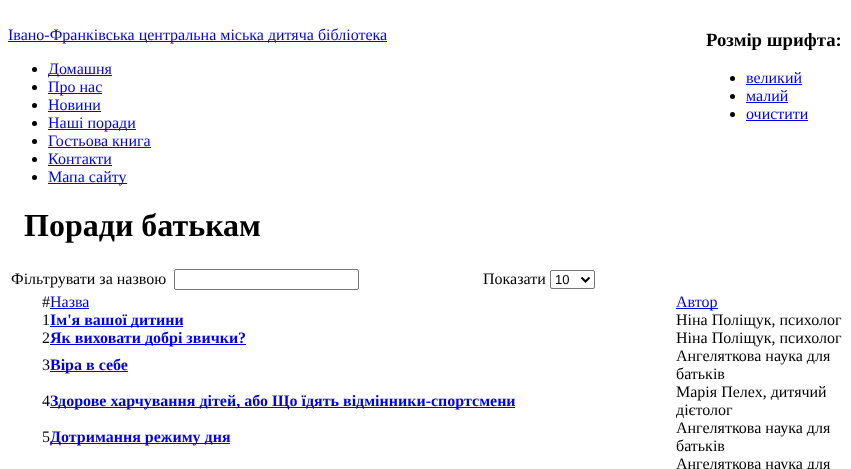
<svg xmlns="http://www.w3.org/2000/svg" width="851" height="469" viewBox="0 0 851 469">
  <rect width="100%" height="100%" fill="#ffffff"/>
  <rect x="8" y="41" width="379" height="1" fill="#0000ee"/>
  <text x="8" y="40" font-family="Liberation Serif" font-size="16" fill="#0000ee">Івано-Франківська центральна міська дитяча бібліотека</text>
  <circle cx="34.5" cy="69.5" r="2.5" fill="#000000"/>
  <rect x="48" y="75" width="64" height="1" fill="#0000ee"/>
  <text x="48" y="74" font-family="Liberation Serif" font-size="16" fill="#0000ee">Домашня</text>
  <circle cx="34.5" cy="87.5" r="2.5" fill="#000000"/>
  <rect x="48" y="93" width="54" height="1" fill="#0000ee"/>
  <text x="48" y="92" font-family="Liberation Serif" font-size="16" fill="#0000ee">Про нас</text>
  <circle cx="34.5" cy="105.5" r="2.5" fill="#000000"/>
  <text x="48" y="110" font-family="Liberation Serif" font-size="16" fill="#0000ee">Новини</text>
  <rect x="48" y="111" width="53" height="1" fill="#0000ee"/>
  <circle cx="34.5" cy="123.5" r="2.5" fill="#000000"/>
  <rect x="48" y="129" width="88" height="1" fill="#0000ee"/>
  <text x="48" y="128" font-family="Liberation Serif" font-size="16" fill="#0000ee">Наші поради</text>
  <circle cx="34.5" cy="141.5" r="2.5" fill="#000000"/>
  <text x="48" y="146" font-family="Liberation Serif" font-size="16" fill="#0000ee">Гостьова книга</text>
  <rect x="48" y="147" width="103" height="1" fill="#0000ee"/>
  <circle cx="34.5" cy="159.5" r="2.5" fill="#000000"/>
  <text x="48" y="164" font-family="Liberation Serif" font-size="16" fill="#0000ee">Контакти</text>
  <rect x="48" y="165" width="64" height="1" fill="#0000ee"/>
  <circle cx="34.5" cy="177.5" r="2.5" fill="#000000"/>
  <rect x="48" y="183" width="79" height="1" fill="#0000ee"/>
  <text x="48" y="182" font-family="Liberation Serif" font-size="16" fill="#0000ee">Мапа сайту</text>
  <text x="706" y="46" font-family="Liberation Serif" font-size="18.75" font-weight="bold" fill="#000000">Розмір шрифта:</text>
  <circle cx="732.5" cy="78.5" r="2.5" fill="#000000"/>
  <text x="746" y="83" font-family="Liberation Serif" font-size="16" fill="#0000ee">великий</text>
  <rect x="746" y="84" width="56" height="1" fill="#0000ee"/>
  <circle cx="732.5" cy="96.5" r="2.5" fill="#000000"/>
  <text x="746" y="101" font-family="Liberation Serif" font-size="16" fill="#0000ee">малий</text>
  <rect x="746" y="102" width="42" height="1" fill="#0000ee"/>
  <circle cx="732.5" cy="114.5" r="2.5" fill="#000000"/>
  <text x="746" y="119" font-family="Liberation Serif" font-size="16" fill="#0000ee">очистити</text>
  <rect x="746" y="120" width="62" height="1" fill="#0000ee"/>
  <text x="24" y="236" font-family="Liberation Serif" font-size="32" font-weight="bold" fill="#000000">Поради батькам</text>
  <text x="11" y="284" font-family="Liberation Serif" font-size="16" fill="#000000">Фільтрувати за назвою</text>
  <rect x="174.5" y="269.5" width="184" height="20" rx="1.5" fill="none" stroke="#767676"/>
  <text x="483" y="284" font-family="Liberation Serif" font-size="16" fill="#000000">Показати</text>
  <rect x="550.5" y="270.5" width="44" height="18" rx="1.5" fill="none" stroke="#767676"/>
  <path d="M581.5 277.5L585.5 281.5L589.5 277.5" fill="none" stroke="#000000" stroke-width="2"/>
  <text x="555" y="284" font-family="Liberation Sans" font-size="13" fill="#000000">10</text>
  <text x="42" y="307" font-family="Liberation Serif" font-size="16" fill="#000000">#</text>
  <text x="50" y="307" font-family="Liberation Serif" font-size="16" fill="#0000ee">Назва</text>
  <rect x="50" y="308" width="39" height="1" fill="#0000ee"/>
  <rect x="676" y="308" width="42" height="1" fill="#0000ee"/>
  <text x="676" y="307" font-family="Liberation Serif" font-size="16" fill="#0000ee">Автор</text>
  <text x="42" y="325" font-family="Liberation Serif" font-size="16" fill="#000000">1</text>
  <rect x="50" y="326" width="133" height="1" fill="#0000ee"/>
  <text x="50" y="325" font-family="Liberation Serif" font-size="16" font-weight="bold" fill="#0000ee">Ім'я вашої дитини</text>
  <text x="676" y="325" font-family="Liberation Serif" font-size="16" fill="#000000">Ніна Поліщук, психолог</text>
  <text x="42" y="343" font-family="Liberation Serif" font-size="16" fill="#000000">2</text>
  <rect x="50" y="344" width="196" height="1" fill="#0000ee"/>
  <text x="50" y="343" font-family="Liberation Serif" font-size="16" font-weight="bold" fill="#0000ee">Як виховати добрі звички?</text>
  <text x="676" y="343" font-family="Liberation Serif" font-size="16" fill="#000000">Ніна Поліщук, психолог</text>
  <text x="42" y="370" font-family="Liberation Serif" font-size="16" fill="#000000">3</text>
  <rect x="50" y="371" width="78" height="1" fill="#0000ee"/>
  <text x="50" y="370" font-family="Liberation Serif" font-size="16" font-weight="bold" fill="#0000ee">Віра в себе</text>
  <text x="676" y="361" font-family="Liberation Serif" font-size="16" fill="#000000">Ангеляткова наука для</text>
  <text x="676" y="379" font-family="Liberation Serif" font-size="16" fill="#000000">батьків</text>
  <text x="42" y="406" font-family="Liberation Serif" font-size="16" fill="#000000">4</text>
  <rect x="50" y="407" width="465" height="1" fill="#0000ee"/>
  <text x="50" y="406" font-family="Liberation Serif" font-size="16" font-weight="bold" fill="#0000ee">Здорове харчування дітей, або Що їдять відмінники-спортсмени</text>
  <text x="676" y="397" font-family="Liberation Serif" font-size="16" fill="#000000">Марія Пелех, дитячий</text>
  <text x="676" y="415" font-family="Liberation Serif" font-size="16" fill="#000000">дієтолог</text>
  <text x="42" y="442" font-family="Liberation Serif" font-size="16" fill="#000000">5</text>
  <rect x="50" y="443" width="180" height="1" fill="#0000ee"/>
  <text x="50" y="442" font-family="Liberation Serif" font-size="16" font-weight="bold" fill="#0000ee">Дотримання режиму дня</text>
  <text x="676" y="433" font-family="Liberation Serif" font-size="16" fill="#000000">Ангеляткова наука для</text>
  <text x="676" y="451" font-family="Liberation Serif" font-size="16" fill="#000000">батьків</text>
  <text x="676" y="469" font-family="Liberation Serif" font-size="16" fill="#000000">Ангеляткова наука для</text>
</svg>
